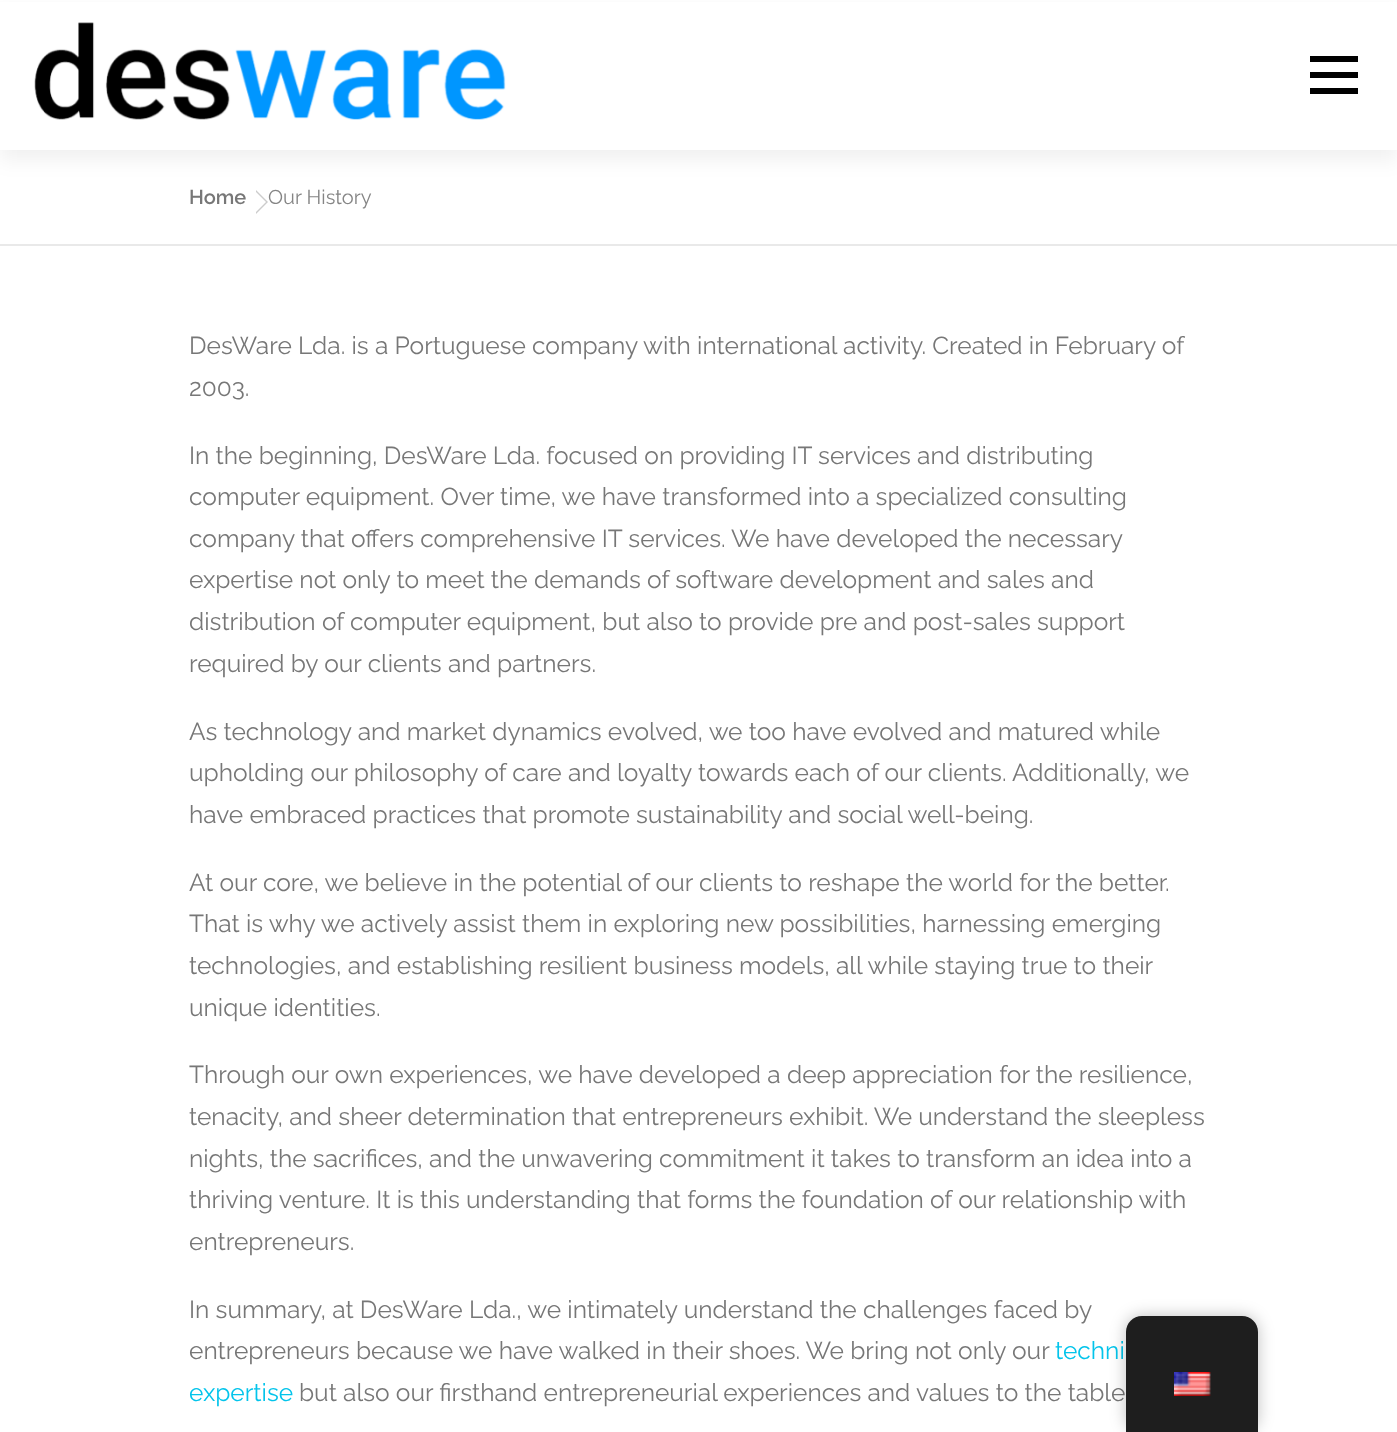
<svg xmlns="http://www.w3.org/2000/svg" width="1397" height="1432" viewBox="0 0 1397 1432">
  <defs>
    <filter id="blur1" x="-50%" y="-200%" width="200%" height="500%"><feGaussianBlur stdDeviation="10"/></filter>
    <filter id="blur2" x="-50%" y="-200%" width="200%" height="500%"><feGaussianBlur stdDeviation="8"/></filter>
  </defs>
  <rect width="100%" height="100%" fill="#ffffff"/>
  <path d="M256 214V190L268 202Z" fill="#000000" fill-opacity="0.2"/>
  <rect x="0" y="10" width="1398" height="150" fill="#323232" fill-opacity="0.06" filter="url(#blur1)"/>
  <rect x="0" y="2" width="1397" height="148" fill="#ffffff"/>
  <image x="34" y="22" width="472" height="98" href="img1.png"/>
  <rect x="1310" y="72" width="48" height="6" fill="#000000"/>
  <rect x="1310" y="56" width="48" height="6" fill="#000000"/>
  <rect x="1310" y="88" width="48" height="6" fill="#000000"/>
  <rect x="0" y="244" width="1397" height="2" fill="#e9e9e9"/>
  <text x="189" y="204" font-family="Raleway" font-size="20" font-weight="600" fill="#777777">Home</text>
  <path d="M256 212V192L266 202Z" fill="#ffffff"/>
  <text x="268" y="204" font-family="Raleway" font-size="20" fill="#858585">Our History</text>
  <text x="189" y="354" font-family="Raleway" font-size="24.5" fill="#777777">DesWare Lda. is a Portuguese company with international activity. Created in February of</text>
  <text x="189" y="396" font-family="Raleway" font-size="24.5" fill="#777777">2003.</text>
  <text x="189" y="464" font-family="Raleway" font-size="24.5" fill="#777777">In the beginning, DesWare Lda. focused on providing IT services and distributing</text>
  <text x="189" y="505" font-family="Raleway" font-size="24.5" fill="#777777">computer equipment. Over time, we have transformed into a specialized consulting</text>
  <text x="189" y="547" font-family="Raleway" font-size="24.5" fill="#777777">company that offers comprehensive IT services. We have developed the necessary</text>
  <text x="189" y="588" font-family="Raleway" font-size="24.5" fill="#777777">expertise not only to meet the demands of software development and sales and</text>
  <text x="189" y="630" font-family="Raleway" font-size="24.5" fill="#777777">distribution of computer equipment, but also to provide pre and post-sales support</text>
  <text x="189" y="672" font-family="Raleway" font-size="24.5" fill="#777777">required by our clients and partners.</text>
  <text x="189" y="740" font-family="Raleway" font-size="24.5" fill="#777777">As technology and market dynamics evolved, we too have evolved and matured while</text>
  <text x="189" y="781" font-family="Raleway" font-size="24.5" fill="#777777">upholding our philosophy of care and loyalty towards each of our clients. Additionally, we</text>
  <text x="189" y="823" font-family="Raleway" font-size="24.5" fill="#777777">have embraced practices that promote sustainability and social well-being.</text>
  <text x="189" y="891" font-family="Raleway" font-size="24.5" fill="#777777">At our core, we believe in the potential of our clients to reshape the world for the better.</text>
  <text x="189" y="932" font-family="Raleway" font-size="24.5" fill="#777777">That is why we actively assist them in exploring new possibilities, harnessing emerging</text>
  <text x="189" y="974" font-family="Raleway" font-size="24.5" fill="#777777">technologies, and establishing resilient business models, all while staying true to their</text>
  <text x="189" y="1016" font-family="Raleway" font-size="24.5" fill="#777777">unique identities.</text>
  <text x="189" y="1083" font-family="Raleway" font-size="24.5" fill="#777777">Through our own experiences, we have developed a deep appreciation for the resilience,</text>
  <text x="189" y="1125" font-family="Raleway" font-size="24.5" fill="#777777">tenacity, and sheer determination that entrepreneurs exhibit. We understand the sleepless</text>
  <text x="189" y="1167" font-family="Raleway" font-size="24.5" fill="#777777">nights, the sacrifices, and the unwavering commitment it takes to transform an idea into a</text>
  <text x="189" y="1208" font-family="Raleway" font-size="24.5" fill="#777777">thriving venture. It is this understanding that forms the foundation of our relationship with</text>
  <text x="189" y="1250" font-family="Raleway" font-size="24.5" fill="#777777">entrepreneurs.</text>
  <text x="189" y="1318" font-family="Raleway" font-size="24.5" fill="#777777">In summary, at DesWare Lda., we intimately understand the challenges faced by</text>
  <text x="189" y="1359" font-family="Raleway" font-size="24.5" fill="#777777">entrepreneurs because we have walked in their shoes. We bring not only our</text>
  <text x="1055" y="1359" font-family="Raleway" font-size="24.5" fill="#03c4eb">techni</text>
  <text x="189" y="1401" font-family="Raleway" font-size="24.5" fill="#03c4eb">expertise</text>
  <text x="299" y="1401" font-family="Raleway" font-size="24.5" fill="#777777">but also our firsthand entrepreneurial experiences and values to the table</text>
  <rect x="1126" y="1316" width="132" height="116" rx="16" fill="#000000" fill-opacity="0.25" filter="url(#blur2)"/>
  <path d="M1142 1316H1242C1251 1316 1258 1323 1258 1332V1432H1126V1332C1126 1323 1133 1316 1142 1316Z" fill="#1e1e1e"/>
  <image x="1174" y="1372" width="37" height="24" href="img2.png"/>
</svg>
